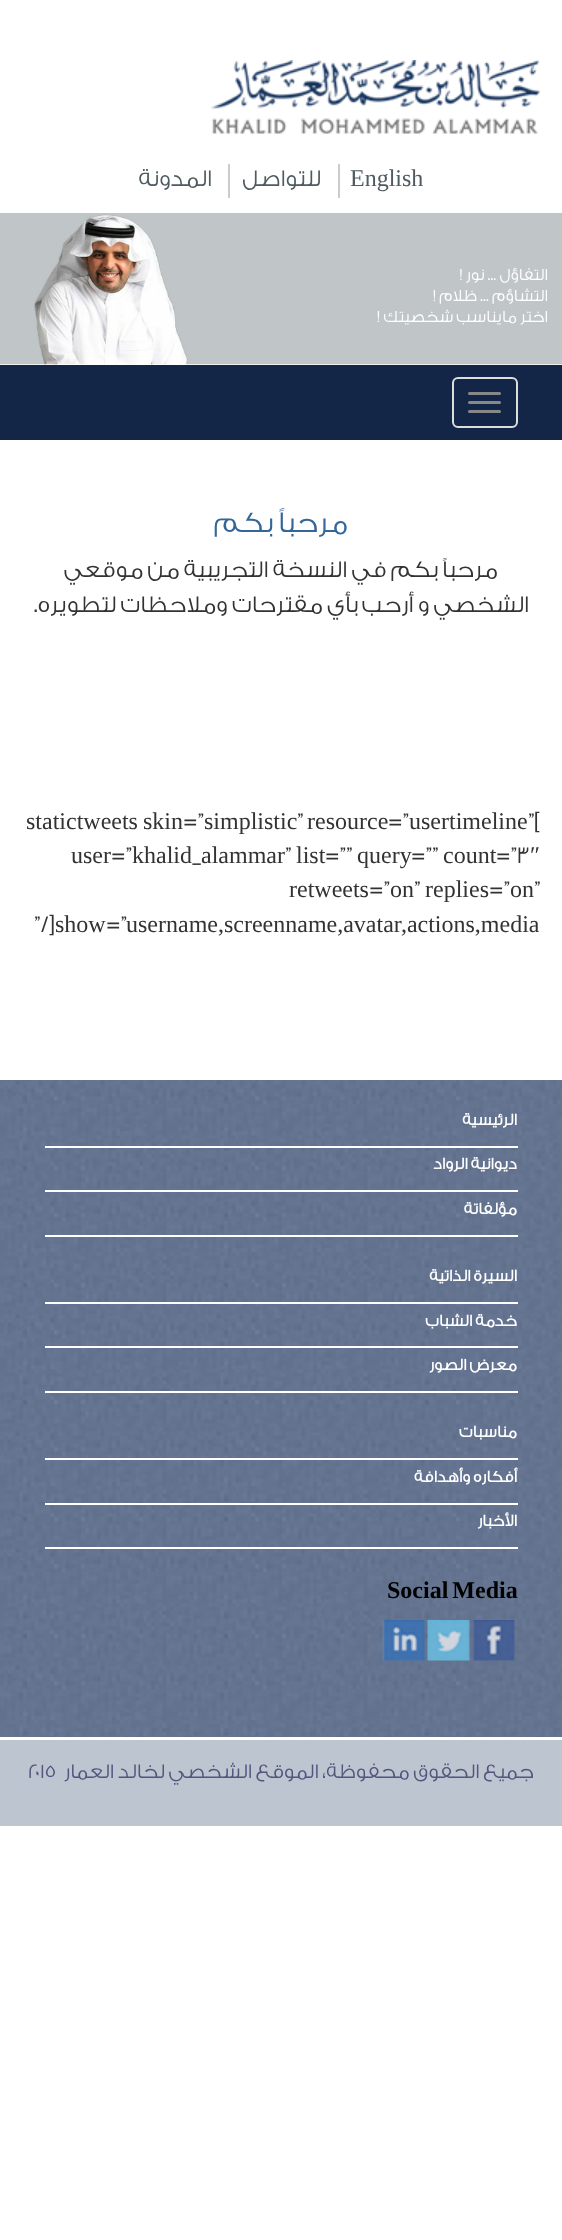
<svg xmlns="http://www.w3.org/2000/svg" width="562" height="2240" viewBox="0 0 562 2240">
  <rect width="100%" height="100%" fill="#ffffff"/>
  <image x="211" y="60" width="329" height="74" href="img1.png"/>
  <rect x="338" y="164" width="2" height="34" fill="#cccccc"/>
  <text x="350" y="186" font-family="Liberation Serif" font-size="24" fill="#4f5b60">English</text>
  <rect x="228" y="164" width="2" height="34" fill="#cccccc"/>
  <text x="321" y="186" font-family="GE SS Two" font-size="24" font-weight="300" direction="rtl" fill="#4f5b60">للتواصل</text>
  <text x="212" y="186" font-family="GE SS Two" font-size="24" font-weight="300" direction="rtl" fill="#4f5b60">المدونة</text>
  <image x="0" y="213" width="562" height="152" href="img2.png"/>
  <text x="548" y="280" font-family="GE SS Two" font-size="16.9" font-weight="300" direction="rtl" fill="#ffffff">التفاؤل ... نور !</text>
  <text x="548" y="301" font-family="GE SS Two" font-size="16.9" font-weight="300" direction="rtl" fill="#ffffff">التشاؤم ... ظلام !</text>
  <text x="548" y="322" font-family="GE SS Two" font-size="16.9" font-weight="300" direction="rtl" fill="#ffffff">اختر مايناسب شخصيتك !</text>
  <rect x="0" y="365" width="562" height="75" fill="#142648"/>
  <rect x="453" y="378" width="64" height="49" rx="5" fill="none" stroke="#dddddd" stroke-width="2"/>
  <rect x="468" y="392" width="33" height="3" rx="1.5" fill="#888888"/>
  <rect x="468" y="401" width="33" height="3" rx="1.5" fill="#888888"/>
  <rect x="468" y="410" width="33" height="3" rx="1.5" fill="#888888"/>
  <text x="348" y="532" font-family="GE SS Two" font-size="30" font-weight="300" direction="rtl" fill="#336699">مرحباً بكم</text>
  <text x="498" y="577" font-family="GE SS Two" font-size="24" font-weight="300" direction="rtl" fill="#333333">مرحباً بكم في النسخة التجريبية من موقعي</text>
  <text x="529" y="612" font-family="GE SS Two" font-size="24" font-weight="300" direction="rtl" fill="#333333">الشخصي و أرحب بأي مقترحات وملاحظات لتطويره.</text>
  <text x="528" y="829" font-family="GE SS Two" font-size="24" font-weight="300" fill="#333333">”[</text>
  <text x="409" y="829" font-family="Liberation Serif" font-size="24" fill="#333333">usertimeline</text>
  <text x="388" y="829" font-family="GE SS Two" font-size="24" font-weight="300" fill="#333333">=”</text>
  <text x="307" y="829" font-family="Liberation Serif" font-size="24" fill="#333333">resource</text>
  <text x="297" y="829" font-family="GE SS Two" font-size="24" font-weight="300" fill="#333333">”</text>
  <text x="204" y="829" font-family="Liberation Serif" font-size="24" fill="#333333">simplistic</text>
  <text x="183" y="829" font-family="GE SS Two" font-size="24" font-weight="300" fill="#333333">=”</text>
  <text x="26" y="829" word-spacing="-1" font-family="Liberation Serif" font-size="24" fill="#333333">statictweets skin</text>
  <text x="530" y="863" font-family="Liberation Serif" font-size="24" fill="#333333">″</text>
  <text x="496" y="863" font-family="GE SS Two" font-size="24" font-weight="300" fill="#333333">=”3</text>
  <text x="443" y="863" font-family="Liberation Serif" font-size="24" fill="#333333">count</text>
  <text x="411" y="863" font-family="GE SS Two" font-size="24" font-weight="300" fill="#333333">=””</text>
  <text x="357" y="863" font-family="Liberation Serif" font-size="24" fill="#333333">query</text>
  <text x="325" y="863" font-family="GE SS Two" font-size="24" font-weight="300" fill="#333333">=””</text>
  <text x="296" y="863" font-family="Liberation Serif" font-size="24" fill="#333333">list</text>
  <text x="285" y="863" font-family="GE SS Two" font-size="24" font-weight="300" fill="#333333">”</text>
  <text x="201" y="863" font-family="Liberation Serif" font-size="24" fill="#333333">alammar</text>
  <text x="192" y="863" font-family="GE SS Two" font-size="24" font-weight="300" fill="#333333">_</text>
  <text x="132" y="863" font-family="Liberation Serif" font-size="24" fill="#333333">khalid</text>
  <text x="111" y="863" font-family="GE SS Two" font-size="24" font-weight="300" fill="#333333">=”</text>
  <text x="71" y="863" font-family="Liberation Serif" font-size="24" fill="#333333">user</text>
  <text x="534" y="897" font-family="GE SS Two" font-size="24" font-weight="300" fill="#333333">”</text>
  <text x="510" y="897" font-family="Liberation Serif" font-size="24" fill="#333333">on</text>
  <text x="489" y="897" font-family="GE SS Two" font-size="24" font-weight="300" fill="#333333">=”</text>
  <text x="425" y="897" font-family="Liberation Serif" font-size="24" fill="#333333">replies</text>
  <text x="414" y="897" font-family="GE SS Two" font-size="24" font-weight="300" fill="#333333">”</text>
  <text x="390" y="897" font-family="Liberation Serif" font-size="24" fill="#333333">on</text>
  <text x="369" y="897" font-family="GE SS Two" font-size="24" font-weight="300" fill="#333333">=”</text>
  <text x="289" y="897" font-family="Liberation Serif" font-size="24" fill="#333333">retweets</text>
  <text x="126" y="932" font-family="Liberation Serif" font-size="24" fill="#333333">username,screenname,avatar,actions,media</text>
  <text x="106" y="932" font-family="GE SS Two" font-size="24" font-weight="300" fill="#333333">=”</text>
  <text x="55" y="932" font-family="Liberation Serif" font-size="24" fill="#333333">show</text>
  <text x="34" y="932" font-family="GE SS Two" font-size="24" font-weight="300" fill="#333333">”/]</text>
  <image x="0" y="1080" width="562" height="657" href="img3.png"/>
  <rect x="45" y="1146" width="473" height="2" fill="#ffffff"/>
  <text x="517" y="1125" font-family="GE SS Two" font-size="16.5" font-weight="bold" direction="rtl" fill="#ffffff">الرئيسية</text>
  <rect x="45" y="1190" width="473" height="2" fill="#ffffff"/>
  <text x="517" y="1169" font-family="GE SS Two" font-size="16.5" font-weight="bold" direction="rtl" fill="#ffffff">ديوانية الرواد</text>
  <rect x="45" y="1235" width="473" height="2" fill="#ffffff"/>
  <text x="517" y="1214" font-family="GE SS Two" font-size="16.5" font-weight="bold" direction="rtl" fill="#ffffff">مؤلفاتة</text>
  <rect x="45" y="1302" width="473" height="2" fill="#ffffff"/>
  <text x="517" y="1281" font-family="GE SS Two" font-size="16.5" font-weight="bold" direction="rtl" fill="#ffffff">السيرة الذاتية</text>
  <rect x="45" y="1346" width="473" height="2" fill="#ffffff"/>
  <text x="517" y="1326" font-family="GE SS Two" font-size="16.5" font-weight="bold" direction="rtl" fill="#ffffff">خدمة الشباب</text>
  <rect x="45" y="1391" width="473" height="2" fill="#ffffff"/>
  <text x="517" y="1370" font-family="GE SS Two" font-size="16.5" font-weight="bold" direction="rtl" fill="#ffffff">معرض الصور</text>
  <rect x="45" y="1458" width="473" height="2" fill="#ffffff"/>
  <text x="517" y="1437" font-family="GE SS Two" font-size="16.5" font-weight="bold" direction="rtl" fill="#ffffff">مناسبات</text>
  <rect x="45" y="1503" width="473" height="2" fill="#ffffff"/>
  <text x="517" y="1482" font-family="GE SS Two" font-size="16.5" font-weight="bold" direction="rtl" fill="#ffffff">أفكاره وأهدافة</text>
  <rect x="45" y="1547" width="473" height="2" fill="#ffffff"/>
  <text x="517" y="1526" font-family="GE SS Two" font-size="16.5" font-weight="bold" direction="rtl" fill="#ffffff">الأخبار</text>
  <text x="387" y="1598" word-spacing="-2" font-family="Liberation Serif" font-size="24" font-weight="bold" fill="#000000">Social Media</text>
  <image x="472" y="1620" width="43" height="41" href="img4.png"/>
  <image x="427" y="1620" width="43" height="41" href="img5.png"/>
  <image x="382" y="1620" width="43" height="41" href="img6.png"/>
  <rect x="0" y="1740" width="562" height="86" fill="#bdc5d1"/>
  <text x="534" y="1778" font-family="GE SS Two" font-size="21" font-weight="300" direction="rtl" fill="#53557d">جميع الحقوق محفوظة، الموقع الشخصي لخالد العمار</text>
  <text x="28" y="1778" font-family="GE SS Two" font-size="21" font-weight="300" fill="#53557d">٢٠١٥</text>
</svg>
